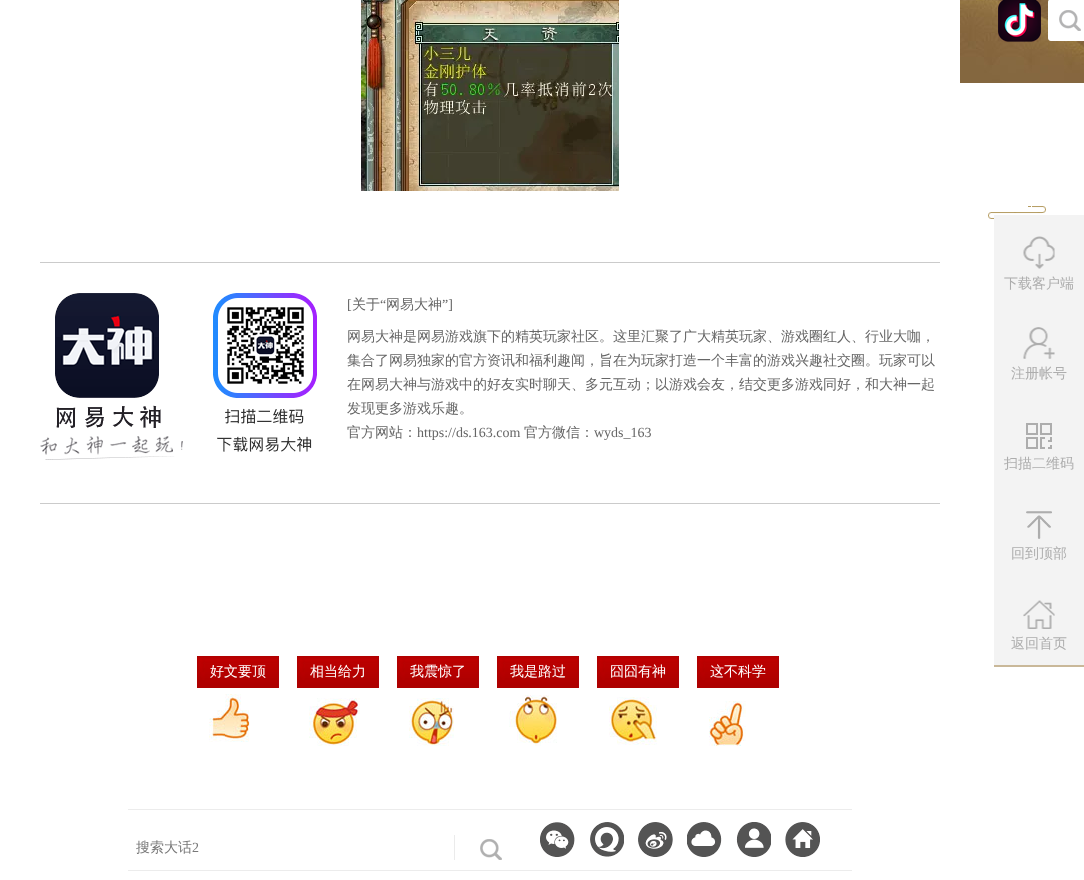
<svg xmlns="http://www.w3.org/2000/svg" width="1084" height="880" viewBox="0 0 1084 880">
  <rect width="100%" height="100%" fill="#ffffff"/>
  <image x="960" y="0" width="124" height="83" href="img1.png"/>
  <image x="998" y="0" width="86" height="42" href="img2.png"/>
  <image x="361" y="0" width="258" height="191" href="img3.png"/>
  <rect x="40" y="262" width="900" height="1" fill="#cbcbcb"/>
  <rect x="40" y="503" width="900" height="1" fill="#cbcbcb"/>
  <image x="40" y="293" width="143" height="167" href="img4.png"/>
  <image x="213" y="293" width="104" height="159" href="img5.png"/>
  <text x="347" y="309" font-family="Liberation Serif" font-size="14" fill="#666666">[</text>
  <text x="352" y="309" font-family="WenQuanYi Zen Hei" font-size="14" font-weight="500" fill="#666666">关于</text>
  <text x="380" y="309" font-family="Liberation Serif" font-size="14" fill="#666666">“</text>
  <text x="386" y="309" font-family="WenQuanYi Zen Hei" font-size="14" font-weight="500" fill="#666666">网易大神</text>
  <text x="442" y="309" font-family="Liberation Serif" font-size="14" fill="#666666">”]</text>
  <text x="347" y="341" font-family="WenQuanYi Zen Hei" font-size="14" font-weight="500" fill="#666666">网易大神是网易游戏旗下的精英玩家社区。这里汇聚了广大精英玩家、游戏圈红人、行业大咖，</text>
  <text x="347" y="365" font-family="WenQuanYi Zen Hei" font-size="14" font-weight="500" fill="#666666">集合了网易独家的官方资讯和福利趣闻，旨在为玩家打造一个丰富的游戏兴趣社交圈。玩家可以</text>
  <text x="347" y="389" font-family="WenQuanYi Zen Hei" font-size="14" font-weight="500" fill="#666666">在网易大神与游戏中的好友实时聊天、多元互动；以游戏会友，结交更多游戏同好，和大神一起</text>
  <text x="347" y="413" font-family="WenQuanYi Zen Hei" font-size="14" font-weight="500" fill="#666666">发现更多游戏乐趣。</text>
  <text x="347" y="437" font-family="WenQuanYi Zen Hei" font-size="14" font-weight="500" fill="#666666">官方网站：</text>
  <text x="417" y="437" font-family="Liberation Serif" font-size="14" fill="#666666">https://ds.163.com</text>
  <text x="524" y="437" font-family="WenQuanYi Zen Hei" font-size="14" font-weight="500" fill="#666666">官方微信：</text>
  <text x="594" y="437" font-family="Liberation Serif" font-size="14" fill="#666666">wyds_163</text>
  <image x="197" y="656" width="82" height="32" href="img6.png"/>
  <text x="210" y="676" font-family="WenQuanYi Zen Hei" font-size="14" font-weight="500" fill="#ffffff">好文要顶</text>
  <image x="209" y="694" width="41" height="48" href="img7.png"/>
  <image x="297" y="656" width="82" height="32" href="img6.png"/>
  <text x="310" y="676" font-family="WenQuanYi Zen Hei" font-size="14" font-weight="500" fill="#ffffff">相当给力</text>
  <image x="309" y="698" width="51" height="48" href="img8.png"/>
  <image x="397" y="656" width="82" height="32" href="img6.png"/>
  <text x="410" y="676" font-family="WenQuanYi Zen Hei" font-size="14" font-weight="500" fill="#ffffff">我震惊了</text>
  <image x="409" y="698" width="45" height="48" href="img9.png"/>
  <image x="497" y="656" width="82" height="32" href="img6.png"/>
  <text x="510" y="676" font-family="WenQuanYi Zen Hei" font-size="14" font-weight="500" fill="#ffffff">我是路过</text>
  <image x="509" y="695" width="48" height="51" href="img10.png"/>
  <image x="597" y="656" width="82" height="32" href="img6.png"/>
  <text x="610" y="676" font-family="WenQuanYi Zen Hei" font-size="14" font-weight="500" fill="#ffffff">囧囧有神</text>
  <image x="609" y="697" width="48" height="48" href="img11.png"/>
  <image x="697" y="656" width="82" height="32" href="img6.png"/>
  <text x="710" y="676" font-family="WenQuanYi Zen Hei" font-size="14" font-weight="500" fill="#ffffff">这不科学</text>
  <image x="709" y="701" width="37" height="45" href="img12.png"/>
  <rect x="128" y="809" width="724" height="1" fill="#ececec"/>
  <rect x="128" y="870" width="724" height="1" fill="#ececec"/>
  <rect x="454" y="835" width="1" height="25" fill="#ebebeb"/>
  <text x="136" y="852" font-family="WenQuanYi Zen Hei" font-size="14" font-weight="500" fill="#787878">搜索大话</text>
  <text x="192" y="852" font-family="Liberation Serif" font-size="14" fill="#787878">2</text>
  <image x="480" y="839" width="22" height="21" href="img13.png"/>
  <image x="540" y="822" width="35" height="35" href="img14.png"/>
  <image x="590" y="822" width="34" height="35" href="img15.png"/>
  <image x="638" y="822" width="35" height="35" href="img16.png"/>
  <image x="687" y="822" width="35" height="35" href="img17.png"/>
  <image x="736" y="822" width="35" height="35" href="img18.png"/>
  <image x="785" y="822" width="35" height="35" href="img19.png"/>
  <rect x="994" y="665" width="90" height="2" fill="#c9b899"/>
  <image x="988" y="206" width="58" height="13" href="img20.png"/>
  <rect x="994" y="215" width="90" height="450" fill="#f3f3f3"/>
  <image x="1023" y="236" width="32" height="33" href="img21.png"/>
  <text x="1004" y="288" font-family="WenQuanYi Zen Hei" font-size="14" font-weight="500" fill="#adadad">下载客户端</text>
  <image x="1023" y="327" width="32" height="32" href="img22.png"/>
  <text x="1011" y="378" font-family="WenQuanYi Zen Hei" font-size="14" font-weight="500" fill="#adadad">注册帐号</text>
  <image x="1026" y="423" width="26" height="26" href="img23.png"/>
  <text x="1004" y="468" font-family="WenQuanYi Zen Hei" font-size="14" font-weight="500" fill="#adadad">扫描二维码</text>
  <image x="1026" y="511" width="26" height="28" href="img24.png"/>
  <text x="1011" y="558" font-family="WenQuanYi Zen Hei" font-size="14" font-weight="500" fill="#adadad">回到顶部</text>
  <image x="1023" y="600" width="32" height="29" href="img25.png"/>
  <text x="1011" y="648" font-family="WenQuanYi Zen Hei" font-size="14" font-weight="500" fill="#adadad">返回首页</text>
</svg>
